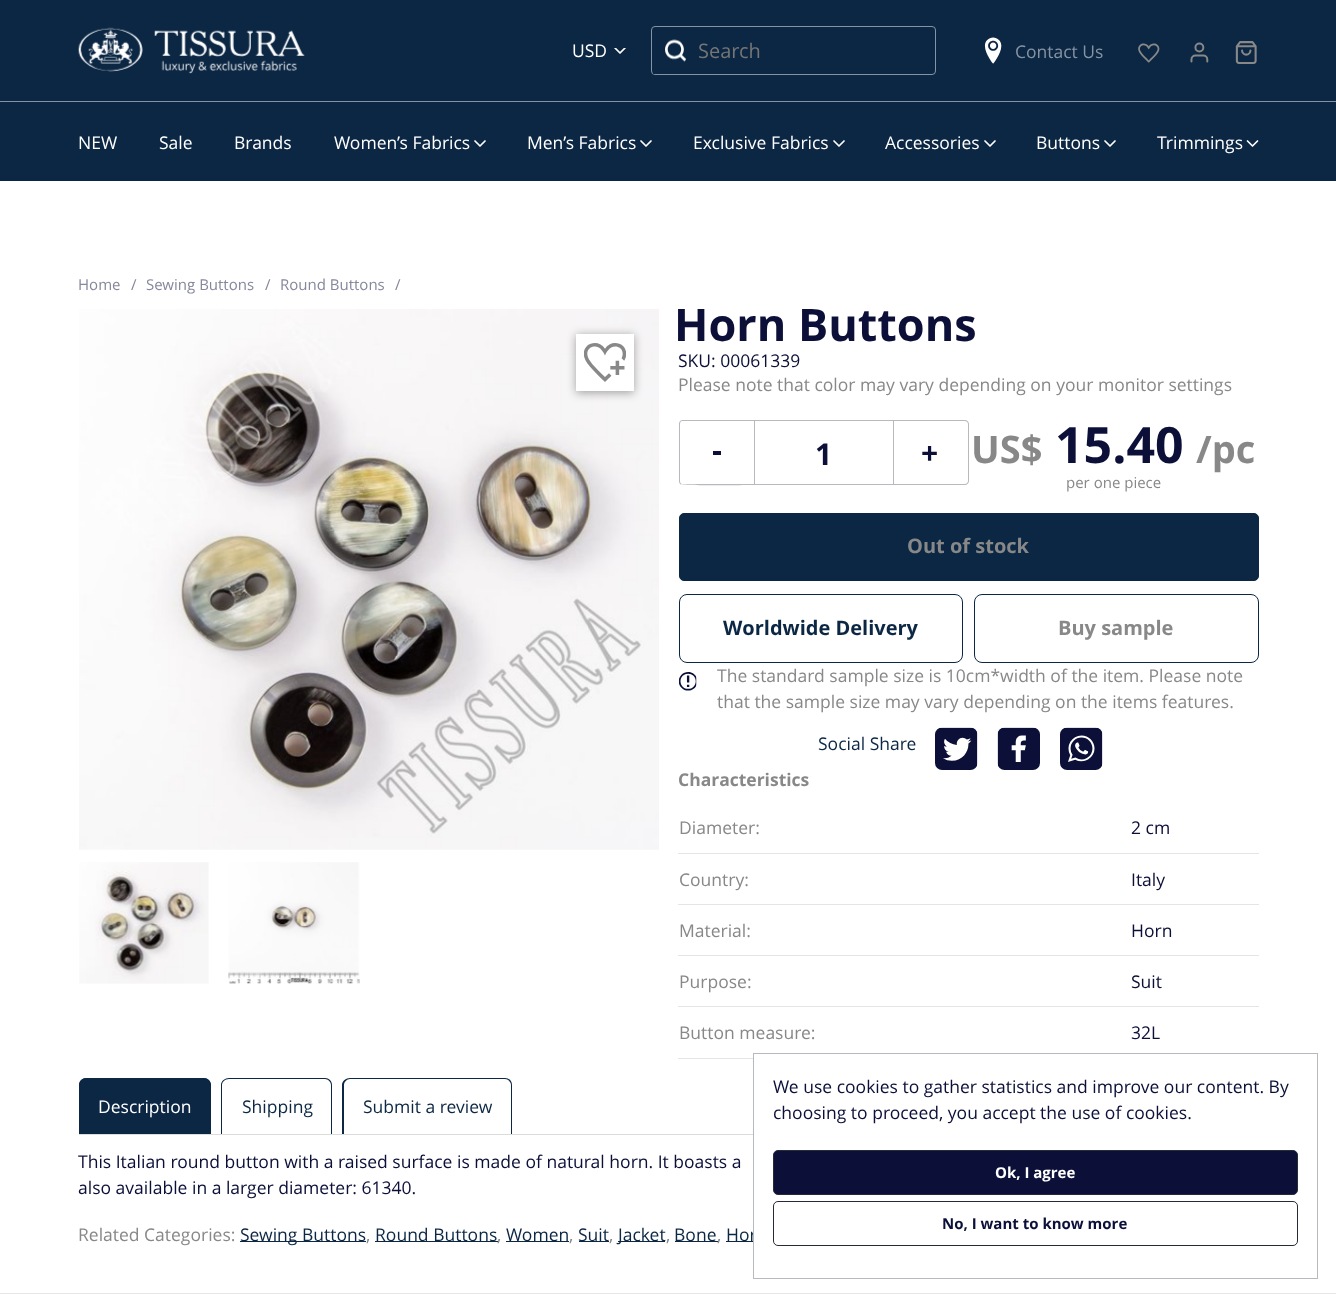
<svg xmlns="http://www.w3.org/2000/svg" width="1336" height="1297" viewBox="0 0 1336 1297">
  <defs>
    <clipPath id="clip1"><rect x="611" y="48" width="15" height="8"/></clipPath>
    <filter id="blur1" x="-50%" y="-200%" width="200%" height="500%"><feGaussianBlur stdDeviation="5"/></filter>
  </defs>
  <rect width="100%" height="100%" fill="#ffffff"/>
  <rect x="0" y="0" width="1336" height="181" fill="#0c2744"/>
  <rect x="0" y="101" width="1336" height="1" fill="#8693a2"/>
  <image x="78" y="27" width="227" height="47" href="img1.png"/>
  <text x="572" y="57" font-family="Open Sans" font-size="17.5" fill="#ffffff">USD</text>
  <g clip-path="url(#clip1)">
    <path d="M615 48L620 53L625 48" fill="none" stroke="#ffffff" stroke-width="1.7" stroke-linecap="round" stroke-linejoin="round"/>
  </g>
  <rect x="651.5" y="26.5" width="284" height="48" rx="3.5" fill="none" stroke="#8693a2"/>
  <rect x="653" y="73" width="2" height="1" fill="#0c2744"/>
  <image x="665" y="39" width="21" height="23" href="img2.png"/>
  <text x="698" y="58" font-family="Open Sans" font-size="20" fill="#757575">Search</text>
  <image x="984" y="37" width="18" height="27" href="img3.png"/>
  <text x="1015" y="58" font-family="Open Sans" font-size="17.5" fill="#8693a2">Contact Us</text>
  <image x="1138" y="43" width="22" height="20" href="img4.png"/>
  <image x="1190" y="42" width="19" height="21" href="img5.png"/>
  <image x="1235" y="41" width="22" height="23" href="img6.png"/>
  <text x="78" y="149" font-family="Open Sans" font-size="17.5" fill="#ffffff">NEW</text>
  <text x="159" y="149" font-family="Open Sans" font-size="17.5" fill="#ffffff">Sale</text>
  <text x="234" y="149" font-family="Open Sans" font-size="17.5" fill="#ffffff">Brands</text>
  <text x="334" y="149" font-family="Open Sans" font-size="17.5" fill="#ffffff">Women’s Fabrics</text>
  <path d="M475 141L480 146L485 141" fill="none" stroke="#ffffff" stroke-width="1.7" stroke-linecap="round" stroke-linejoin="round"/>
  <text x="527" y="149" font-family="Open Sans" font-size="17.5" fill="#ffffff">Men’s Fabrics</text>
  <path d="M641 141L646 146L651 141" fill="none" stroke="#ffffff" stroke-width="1.7" stroke-linecap="round" stroke-linejoin="round"/>
  <text x="693" y="149" font-family="Open Sans" font-size="17.5" fill="#ffffff">Exclusive Fabrics</text>
  <path d="M834 141L839 146L844 141" fill="none" stroke="#ffffff" stroke-width="1.7" stroke-linecap="round" stroke-linejoin="round"/>
  <text x="885" y="149" font-family="Open Sans" font-size="17.5" fill="#ffffff">Accessories</text>
  <path d="M985 141L990 146L995 141" fill="none" stroke="#ffffff" stroke-width="1.7" stroke-linecap="round" stroke-linejoin="round"/>
  <text x="1036" y="149" font-family="Open Sans" font-size="17.5" fill="#ffffff">Buttons</text>
  <path d="M1105 141L1110 146L1115 141" fill="none" stroke="#ffffff" stroke-width="1.7" stroke-linecap="round" stroke-linejoin="round"/>
  <text x="1157" y="149" font-family="Open Sans" font-size="17.5" fill="#ffffff">Trimmings</text>
  <path d="M1247.5 141L1252.5 146L1257.5 141" fill="none" stroke="#ffffff" stroke-width="1.7" stroke-linecap="round" stroke-linejoin="round"/>
  <text x="78" y="290" font-family="Open Sans" font-size="15" fill="#86879b">Home</text>
  <text x="131" y="290" font-family="Open Sans" font-size="15" fill="#86879b">/</text>
  <text x="146" y="290" font-family="Open Sans" font-size="15" fill="#86879b">Sewing Buttons</text>
  <text x="265" y="290" font-family="Open Sans" font-size="15" fill="#86879b">/</text>
  <text x="280" y="290" font-family="Open Sans" font-size="15" fill="#86879b">Round Buttons</text>
  <text x="395" y="290" font-family="Open Sans" font-size="15" fill="#86879b">/</text>
  <image x="79" y="309" width="580" height="541" href="img7.png"/>
  <rect x="576" y="335" width="58" height="58" fill="#000000" fill-opacity="0.35" filter="url(#blur1)"/>
  <rect x="576" y="334" width="58" height="57" fill="#ffffff"/>
  <image x="584" y="343" width="42" height="39" href="img8.png"/>
  <image x="79" y="862" width="130" height="122" href="img9.png"/>
  <image x="228" y="862" width="132" height="122" href="img10.png"/>
  <text x="674" y="341" font-family="Open Sans" font-size="45" font-weight="bold" fill="#0c0f38">Horn Buttons</text>
  <text x="678" y="367" font-family="Open Sans" font-size="17.5" fill="#0c0f38">SKU: 00061339</text>
  <text x="678" y="391" font-family="Open Sans" font-size="17.5" fill="#888888">Please note that color may vary depending on your monitor settings</text>
  <path d="M682 420H754V485C746 485 683 486 680 484L679 482V423L680 421ZM682 421H754V484H682C681 484 680 483 680 481V424C680 422 681 421 682 421Z" fill="#b8b8bf" fill-rule="evenodd"/>
  <rect x="713" y="451" width="8" height="4" fill="#0c0f38"/>
  <rect x="754.5" y="420.5" width="139" height="64" fill="none" stroke="#b8b8bf"/>
  <text x="815" y="465" font-family="Open Sans" font-size="30" font-weight="bold" fill="#0c0f38">1</text>
  <path d="M894 420H965C967 420 969 422 969 424V481C969 483 967 485 965 485H894ZM894 421H965C966 421 968 422 968 424V481C968 483 966 484 965 484H894Z" fill="#b8b8bf" fill-rule="evenodd"/>
  <text x="921" y="464" font-family="Open Sans" font-size="30" font-weight="bold" fill="#0c0f38">+</text>
  <text x="971" y="463" font-family="Open Sans" font-size="38" font-weight="bold" fill="#888888">US$</text>
  <text x="1055" y="463" font-family="Open Sans" font-size="50" font-weight="bold" fill="#0c0f38">15.40</text>
  <text x="1196" y="463" font-family="Open Sans" font-size="38" font-weight="bold" fill="#888888">/pc</text>
  <text x="1066" y="488" font-family="Open Sans" font-size="15" fill="#888888">per one piece</text>
  <rect x="679.5" y="513.5" width="579" height="67" rx="4.5" fill="#0c2744" stroke="#0c2744"/>
  <text x="907" y="553" font-family="Open Sans" font-size="20" font-weight="bold" fill="#888888">Out of stock</text>
  <rect x="679.5" y="594.5" width="283" height="68" rx="7.5" fill="none" stroke="#0c2744"/>
  <text x="723" y="635" font-family="Open Sans" font-size="20" font-weight="bold" fill="#0c2744">Worldwide Delivery</text>
  <rect x="974.5" y="594.5" width="284" height="68" rx="7.5" fill="none" stroke="#0c2744"/>
  <text x="1058" y="635" font-family="Open Sans" font-size="20" font-weight="bold" fill="#888888">Buy sample</text>
  <image x="679" y="672" width="18" height="19" href="img11.png"/>
  <text x="717" y="682" font-family="Open Sans" font-size="17.5" fill="#888888">The standard sample size is 10cm*width of the item. Please note</text>
  <text x="717" y="708" font-family="Open Sans" font-size="17.5" fill="#888888">that the sample size may vary depending on the items features.</text>
  <text x="818" y="750" font-family="Open Sans" font-size="17.5" fill="#0c2744">Social Share</text>
  <image x="935" y="727" width="43" height="43" href="img12.png"/>
  <image x="997" y="727" width="43" height="43" href="img13.png"/>
  <image x="1060" y="727" width="43" height="43" href="img14.png"/>
  <text x="678" y="786" font-family="Open Sans" font-size="17.5" font-weight="bold" fill="#888888">Characteristics</text>
  <text x="679" y="834" font-family="Open Sans" font-size="17.5" fill="#888888">Diameter:</text>
  <rect x="678" y="853" width="581" height="1" fill="#e5e5e5"/>
  <text x="1131" y="834" font-family="Open Sans" font-size="17.5" fill="#0c0f38">2 cm</text>
  <text x="679" y="886" font-family="Open Sans" font-size="17.5" fill="#888888">Country:</text>
  <rect x="678" y="904" width="581" height="1" fill="#e5e5e5"/>
  <text x="1131" y="886" font-family="Open Sans" font-size="17.5" fill="#0c0f38">Italy</text>
  <text x="679" y="937" font-family="Open Sans" font-size="17.5" fill="#888888">Material:</text>
  <rect x="678" y="955" width="581" height="1" fill="#e5e5e5"/>
  <text x="1131" y="937" font-family="Open Sans" font-size="17.5" fill="#0c0f38">Horn</text>
  <text x="679" y="988" font-family="Open Sans" font-size="17.5" fill="#888888">Purpose:</text>
  <rect x="678" y="1006" width="581" height="1" fill="#e5e5e5"/>
  <text x="1131" y="988" font-family="Open Sans" font-size="17.5" fill="#0c0f38">Suit</text>
  <rect x="678" y="1058" width="75" height="1" fill="#e5e5e5"/>
  <text x="679" y="1039" font-family="Open Sans" font-size="17.5" fill="#888888">Button measure:</text>
  <text x="1131" y="1039" font-family="Open Sans" font-size="17.5" fill="#0c0f38">32L</text>
  <rect x="79" y="1134" width="674" height="1" fill="#dcdcdc"/>
  <path d="M87 1078H203C207.5 1078 211 1081.5 211 1086V1134H79V1086C79 1081.5 82.5 1078 87 1078Z" fill="#0c2744"/>
  <path d="M86 1078H204C208 1078 211 1081 211 1085V1134H79V1085C79 1081 82 1078 86 1078ZM86 1079H204C207 1079 210 1082 210 1085V1134H80V1085C80 1082 83 1079 86 1079Z" fill="#0c2744" fill-rule="evenodd"/>
  <text x="98" y="1113" font-family="Open Sans" font-size="17.5" fill="#ffffff">Description</text>
  <path d="M229 1078H325C329 1078 332 1081 332 1085V1134H221V1085C221 1081 225 1078 229 1078ZM229 1079H325C328 1079 331 1082 331 1085V1134H222V1085C222 1082 225 1079 229 1079Z" fill="#0c2744" fill-rule="evenodd"/>
  <text x="242" y="1113" font-family="Open Sans" font-size="17.5" fill="#0c2744">Shipping</text>
  <path d="M350 1078H505C509 1078 512 1081 512 1085V1134H342V1085C342 1081 346 1078 350 1078ZM350 1079H505C508 1079 511 1082 511 1085V1134H344V1085C344 1082 347 1079 350 1079Z" fill="#0c2744" fill-rule="evenodd"/>
  <text x="363" y="1113" font-family="Open Sans" font-size="17.5" fill="#0c2744">Submit a review</text>
  <text x="78" y="1168" font-family="Open Sans" font-size="17.5" fill="#0c0f38">This Italian round button with a raised surface is made of natural horn. It boasts a</text>
  <text x="78" y="1194" font-family="Open Sans" font-size="17.5" fill="#0c0f38">also available in a larger diameter: 61340.</text>
  <text x="78" y="1241" font-family="Open Sans" font-size="17.5" fill="#888888">Related Categories:</text>
  <rect x="240" y="1241" width="126" height="1" fill="#0c2744"/>
  <text x="240" y="1241" font-family="Open Sans" font-size="17.5" fill="#0c2744">Sewing Buttons</text>
  <text x="366" y="1241" font-family="Open Sans" font-size="17.5" fill="#888888">,</text>
  <rect x="375" y="1241" width="123" height="1" fill="#0c2744"/>
  <text x="375" y="1241" font-family="Open Sans" font-size="17.5" fill="#0c2744">Round Buttons</text>
  <text x="497" y="1241" font-family="Open Sans" font-size="17.5" fill="#888888">,</text>
  <rect x="506" y="1241" width="63" height="1" fill="#0c2744"/>
  <text x="506" y="1241" font-family="Open Sans" font-size="17.5" fill="#0c2744">Women</text>
  <text x="569" y="1241" font-family="Open Sans" font-size="17.5" fill="#888888">,</text>
  <rect x="579" y="1241" width="30" height="1" fill="#0c2744"/>
  <text x="578" y="1241" font-family="Open Sans" font-size="17.5" fill="#0c2744">Suit</text>
  <text x="609" y="1241" font-family="Open Sans" font-size="17.5" fill="#888888">,</text>
  <rect x="618" y="1241" width="47" height="1" fill="#0c2744"/>
  <text x="618" y="1241" font-family="Open Sans" font-size="17.5" fill="#0c2744">Jacket</text>
  <text x="666" y="1241" font-family="Open Sans" font-size="17.5" fill="#888888">,</text>
  <rect x="675" y="1241" width="43" height="1" fill="#0c2744"/>
  <text x="674" y="1241" font-family="Open Sans" font-size="17.5" fill="#0c2744">Bone</text>
  <text x="717" y="1241" font-family="Open Sans" font-size="17.5" fill="#888888">,</text>
  <rect x="726" y="1241" width="27" height="1" fill="#0c2744"/>
  <text x="726" y="1241" font-family="Open Sans" font-size="17.5" fill="#0c2744">Hor</text>
  <rect x="754" y="1231" width="3" height="2" fill="#ffffff"/>
  <rect x="753.5" y="1053.5" width="564" height="225" fill="none" stroke="#b8b8bf"/>
  <text x="773" y="1093" font-family="Open Sans" font-size="17.5" fill="#0c0f38">We use cookies to gather statistics and improve our content. By</text>
  <text x="773" y="1119" font-family="Open Sans" font-size="17.5" fill="#0c0f38">choosing to proceed, you accept the use of cookies.</text>
  <rect x="773.5" y="1150.5" width="524" height="44" rx="4.5" fill="#0c0f38" stroke="#262b36"/>
  <text x="995" y="1178" font-family="Open Sans" font-size="15" font-weight="bold" fill="#ffffff">Ok, I agree</text>
  <rect x="773.5" y="1201.5" width="524" height="44" rx="4.5" fill="none" stroke="#262b36"/>
  <text x="942" y="1229" font-family="Open Sans" font-size="15" font-weight="bold" fill="#0c0f38">No, I want to know more</text>
  <rect x="0" y="1293" width="1336" height="1" fill="#e6e6e6"/>
</svg>
